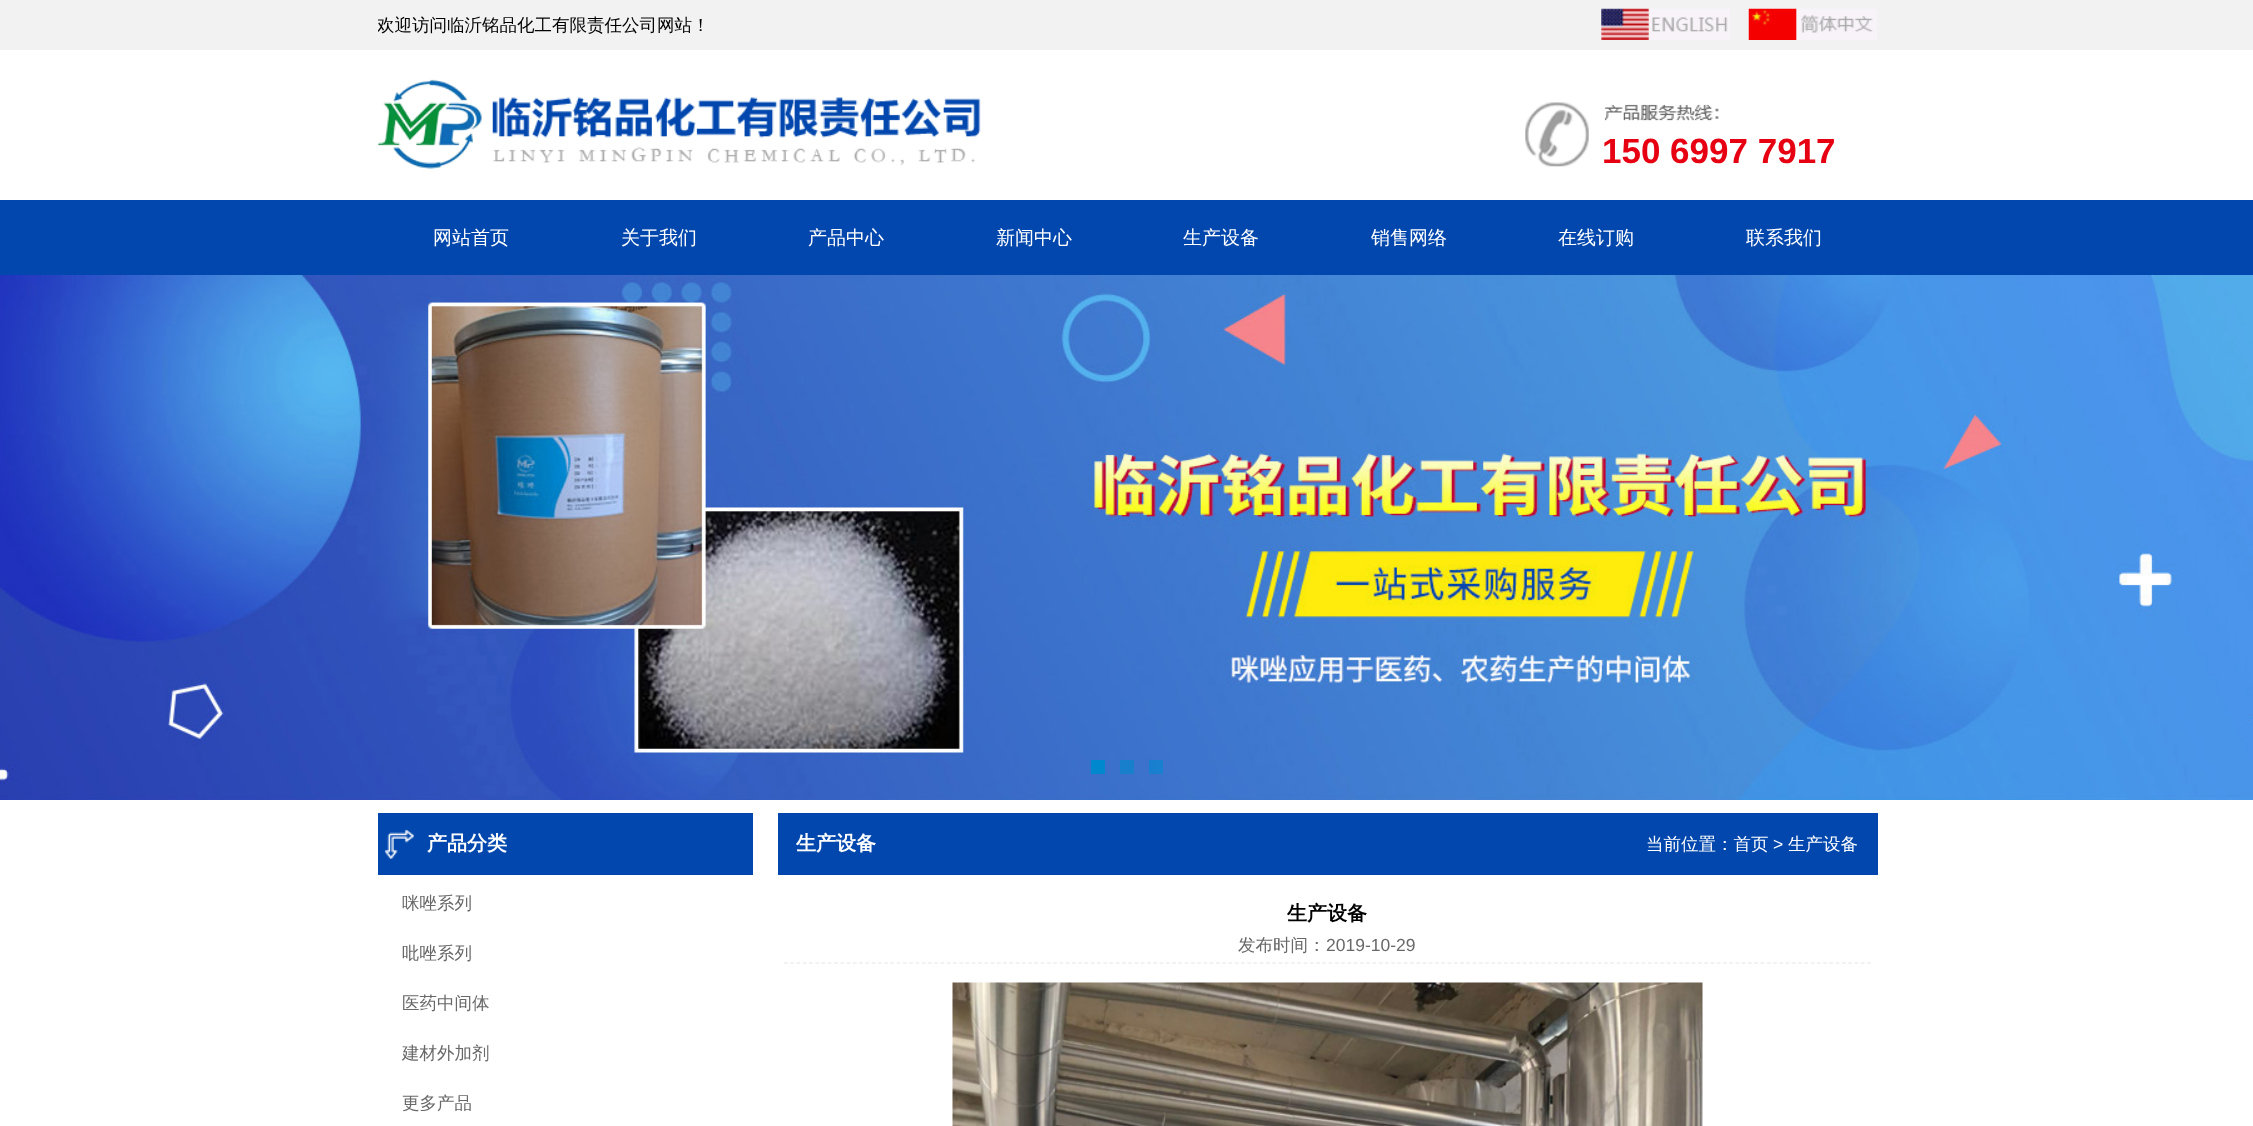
<svg xmlns="http://www.w3.org/2000/svg" width="2253" height="1126" viewBox="0 0 2253 1126">
  <defs>
    <clipPath id="clip1"><rect x="378" y="0" width="1500" height="50"/></clipPath>
  </defs>
  <rect width="100%" height="100%" fill="#ffffff"/>
  <rect x="0" y="0" width="2253" height="50" fill="#f2f2f2"/>
  <g clip-path="url(#clip1)">
    <text x="377" y="31" font-family="WenQuanYi Zen Hei" font-size="17.5" font-weight="500" fill="#000000">欢迎访问临沂铭品化工有限责任公司网站！</text>
  </g>
  <image x="1601" y="8" width="129" height="32" href="img1.png"/>
  <image x="1748" y="8" width="129" height="32" href="img2.png"/>
  <image x="377" y="79" width="604" height="90" href="img3.png"/>
  <image x="1525" y="102" width="194" height="65" href="img4.png"/>
  <text x="1602" y="163" font-family="Liberation Sans" font-size="35" font-weight="bold" fill="#e60012">150 6997 7917</text>
  <rect x="0" y="200" width="2253" height="75" fill="#0147ad"/>
  <text x="433" y="244" font-family="WenQuanYi Zen Hei" font-size="19" font-weight="500" fill="#ffffff">网站首页</text>
  <text x="621" y="244" font-family="WenQuanYi Zen Hei" font-size="19" font-weight="500" fill="#ffffff">关于我们</text>
  <text x="808" y="244" font-family="WenQuanYi Zen Hei" font-size="19" font-weight="500" fill="#ffffff">产品中心</text>
  <text x="996" y="244" font-family="WenQuanYi Zen Hei" font-size="19" font-weight="500" fill="#ffffff">新闻中心</text>
  <text x="1183" y="244" font-family="WenQuanYi Zen Hei" font-size="19" font-weight="500" fill="#ffffff">生产设备</text>
  <text x="1371" y="244" font-family="WenQuanYi Zen Hei" font-size="19" font-weight="500" fill="#ffffff">销售网络</text>
  <text x="1558" y="244" font-family="WenQuanYi Zen Hei" font-size="19" font-weight="500" fill="#ffffff">在线订购</text>
  <text x="1746" y="244" font-family="WenQuanYi Zen Hei" font-size="19" font-weight="500" fill="#ffffff">联系我们</text>
  <image x="0" y="275" width="2253" height="525" href="img5.png"/>
  <rect x="1091" y="760" width="14" height="14" fill="#0088ce"/>
  <rect x="1120" y="760" width="14" height="14" fill="#187fcd"/>
  <rect x="1149" y="760" width="14" height="14" fill="#0088ce" fill-opacity="0.6"/>
  <rect x="378" y="813" width="375" height="62" fill="#0147ad"/>
  <image x="384" y="829" width="30" height="30" href="img6.png"/>
  <text x="427" y="850" font-family="WenQuanYi Zen Hei" font-size="20" font-weight="bold" fill="#ffffff">产品分类</text>
  <text x="402" y="909" font-family="WenQuanYi Zen Hei" font-size="17.5" font-weight="500" fill="#686868">咪唑系列</text>
  <text x="402" y="959" font-family="WenQuanYi Zen Hei" font-size="17.5" font-weight="500" fill="#686868">吡唑系列</text>
  <text x="402" y="1009" font-family="WenQuanYi Zen Hei" font-size="17.5" font-weight="500" fill="#686868">医药中间体</text>
  <text x="402" y="1059" font-family="WenQuanYi Zen Hei" font-size="17.5" font-weight="500" fill="#686868">建材外加剂</text>
  <text x="402" y="1109" font-family="WenQuanYi Zen Hei" font-size="17.5" font-weight="500" fill="#686868">更多产品</text>
  <rect x="778" y="813" width="1100" height="62" fill="#0147ad"/>
  <text x="796" y="850" font-family="WenQuanYi Zen Hei" font-size="20" font-weight="bold" fill="#ffffff">生产设备</text>
  <text x="1646" y="850" font-family="WenQuanYi Zen Hei" font-size="17.5" font-weight="500" fill="#ffffff">当前位置：首页</text>
  <text x="1773" y="850" font-family="Liberation Sans" font-size="17.5" fill="#ffffff">&gt;</text>
  <text x="1788" y="850" font-family="WenQuanYi Zen Hei" font-size="17.5" font-weight="500" fill="#ffffff">生产设备</text>
  <text x="1287" y="920" font-family="WenQuanYi Zen Hei" font-size="20" font-weight="bold" fill="#000000">生产设备</text>
  <path d="M784 963H1871" fill="none" stroke="#e5e5e5" stroke-width="1.2" stroke-dasharray="3.75 2.51"/>
  <text x="1238" y="951" font-family="WenQuanYi Zen Hei" font-size="17.5" font-weight="500" fill="#686868">发布时间：</text>
  <text x="1326" y="951" font-family="Liberation Sans" font-size="17.5" fill="#686868">2019-10-29</text>
  <image x="952" y="982" width="751" height="144" href="img7.png"/>
</svg>
